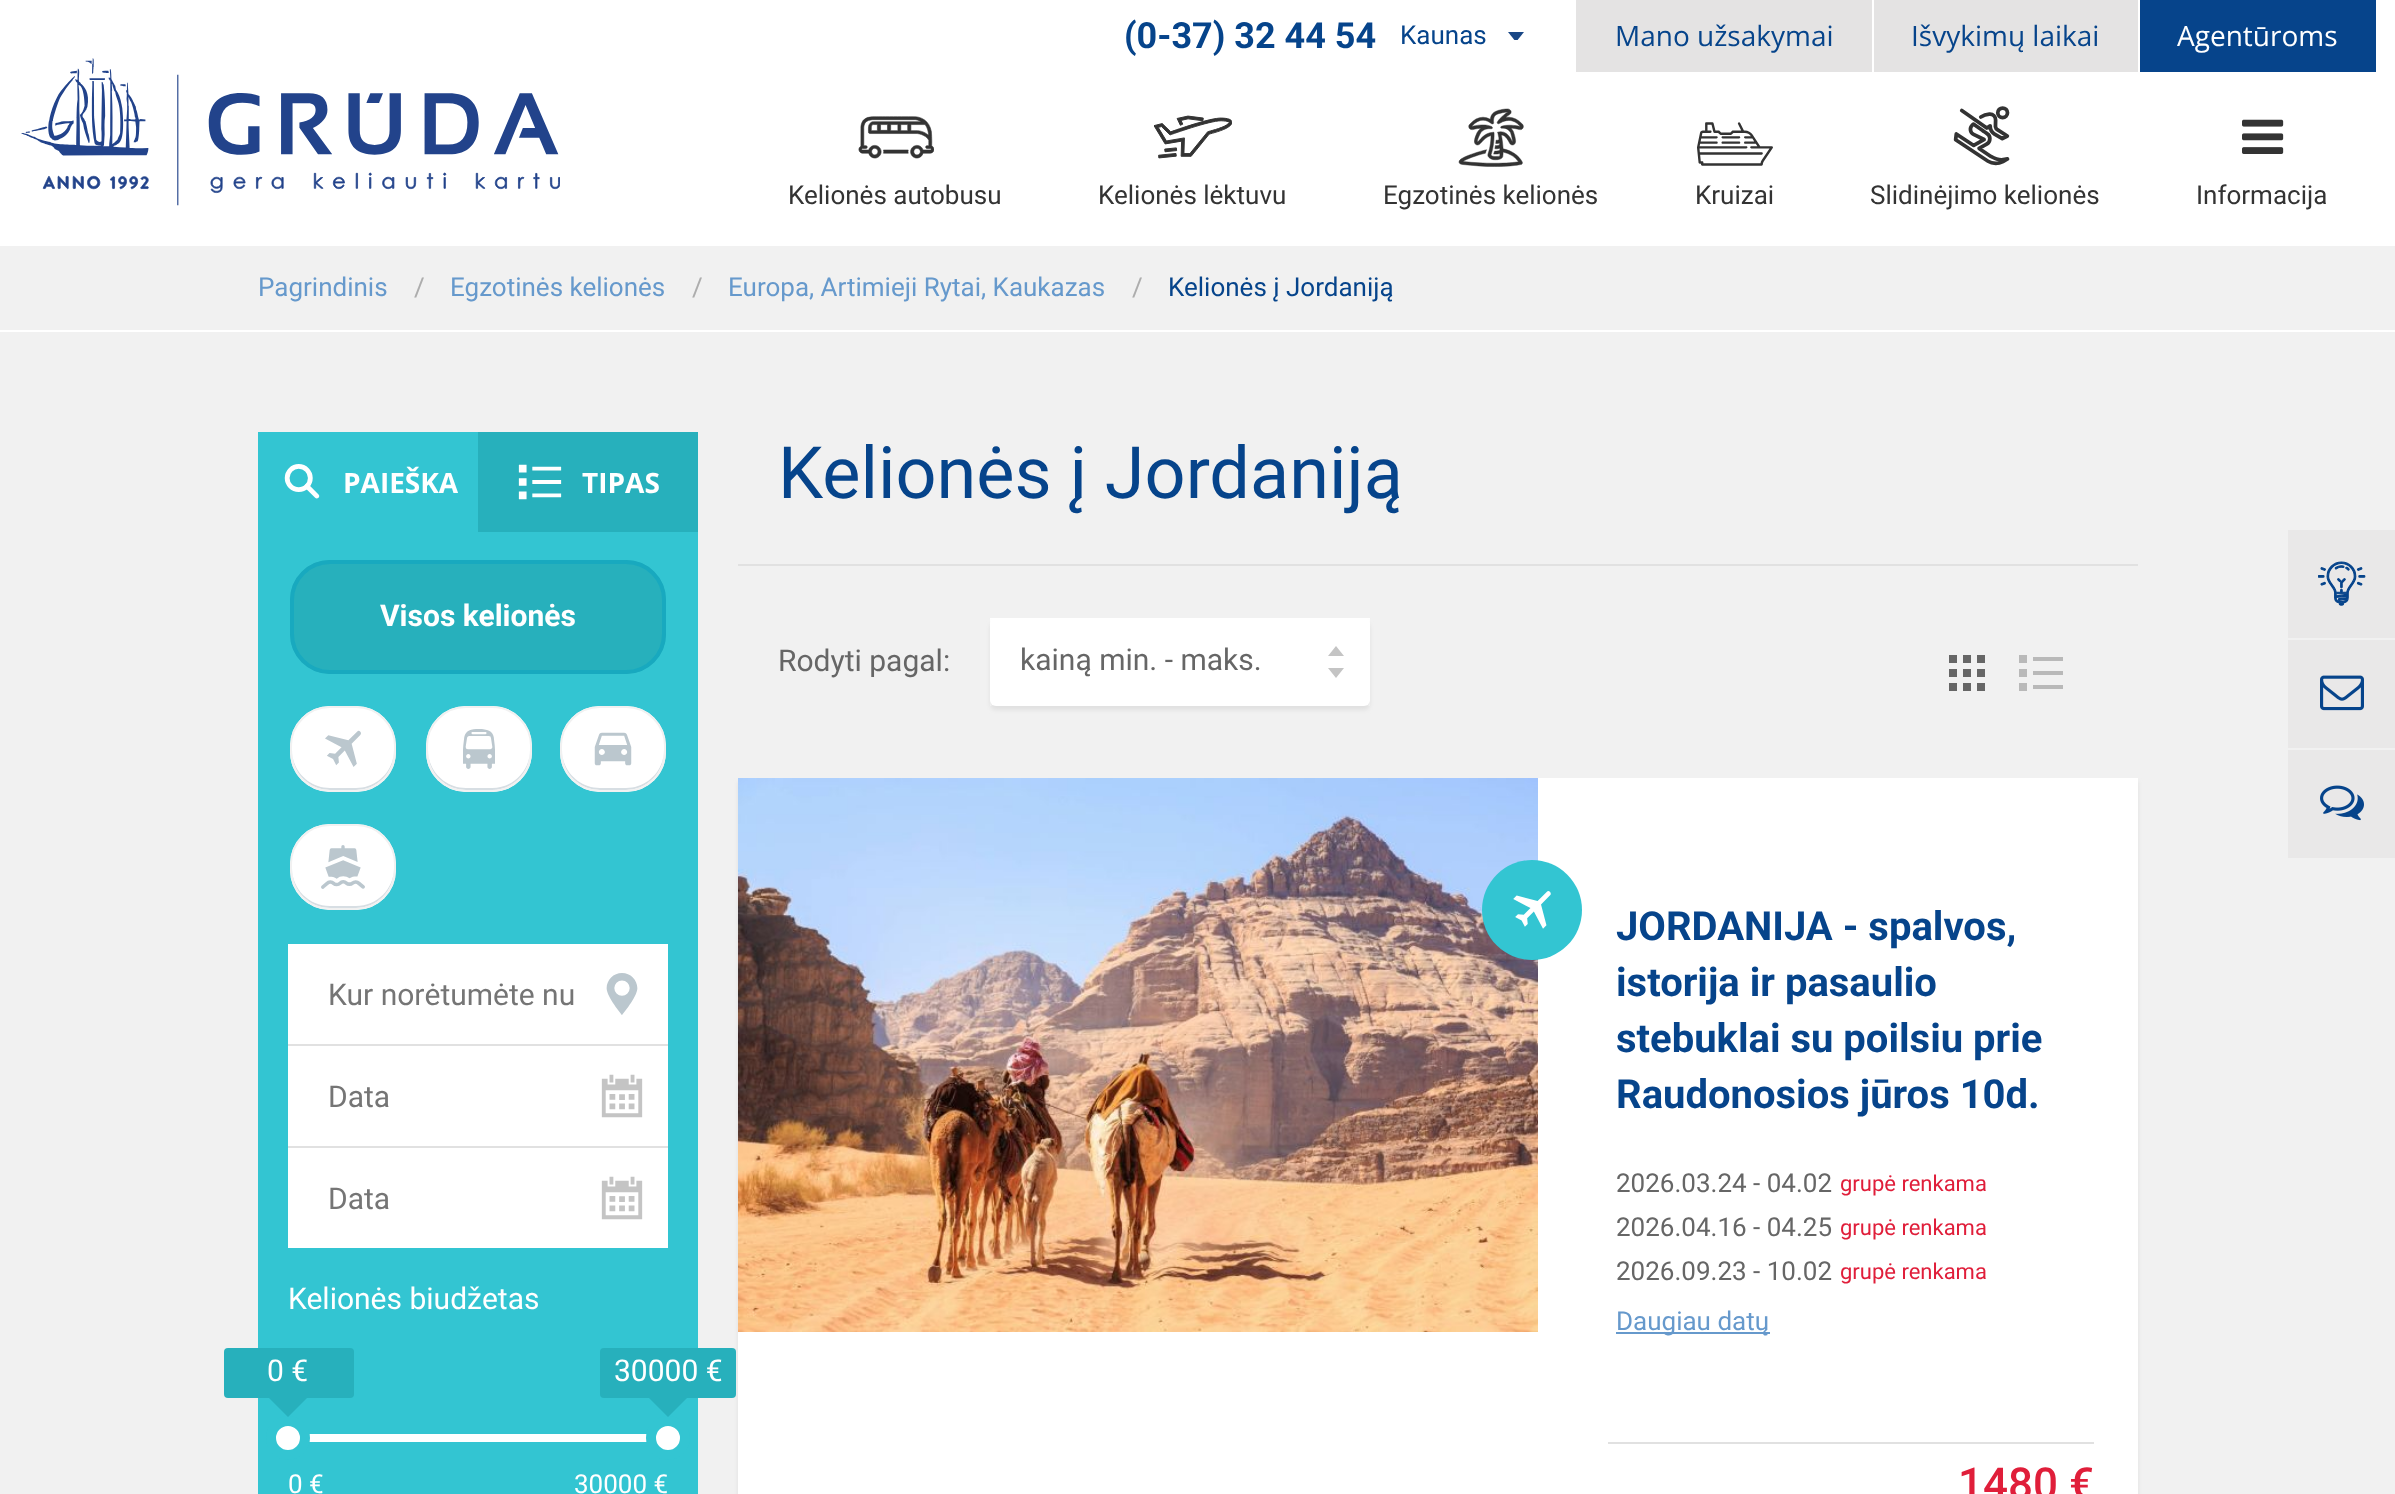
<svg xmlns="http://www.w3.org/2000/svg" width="2395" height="1494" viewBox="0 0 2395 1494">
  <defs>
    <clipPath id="clip1"><rect x="1508" y="32" width="16" height="8"/></clipPath>
    <clipPath id="clip2"><rect x="290" y="560" width="376" height="114" rx="38"/></clipPath>
    <clipPath id="clip3"><rect x="290" y="706" width="106" height="86" rx="38"/></clipPath>
    <clipPath id="clip4"><rect x="426" y="706" width="106" height="86" rx="38"/></clipPath>
    <clipPath id="clip5"><rect x="560" y="706" width="106" height="86" rx="38"/></clipPath>
    <clipPath id="clip6"><rect x="290" y="824" width="106" height="86" rx="38"/></clipPath>
    <filter id="blur1" x="-50%" y="-200%" width="200%" height="500%"><feGaussianBlur stdDeviation="2"/></filter>
  </defs>
  <rect width="100%" height="100%" fill="#f1f1f1"/>
  <rect x="0" y="0" width="2395" height="246" fill="#ffffff"/>
  <text x="1124" y="48" font-family="Roboto" font-size="36" font-weight="bold" fill="#06448b">(0-37) 32 44 54</text>
  <text x="1400" y="44" font-family="Roboto" font-size="26" fill="#06448b">Kaunas</text>
  <g clip-path="url(#clip1)">
    <path d="M1508 32L1516 42L1524 32Z" fill="#194786" fill-rule="evenodd"/>
  </g>
  <rect x="1576" y="0" width="296" height="72" fill="#e4e3e3"/>
  <text x="1615" y="46" font-family="Open Sans" font-size="28" fill="#06448b">Mano užsakymai</text>
  <rect x="1874" y="0" width="264" height="72" fill="#e4e3e3"/>
  <text x="1911" y="46" font-family="Open Sans" font-size="28" fill="#06448b">Išvykimų laikai</text>
  <rect x="2140" y="0" width="236" height="72" fill="#06448b"/>
  <text x="2177" y="46" font-family="Open Sans" font-size="28" fill="#ffffff">Agentūroms</text>
  <image x="21" y="58" width="539" height="148" href="img1.png"/>
  <image x="858" y="116" width="76" height="43" href="img2.png"/>
  <text x="788" y="204" font-family="Roboto" font-size="26" fill="#333333">Kelionės autobusu</text>
  <image x="1154" y="115" width="78" height="44" href="img3.png"/>
  <text x="1098" y="204" font-family="Roboto" font-size="26" fill="#333333">Kelionės lėktuvu</text>
  <image x="1458" y="108" width="66" height="59" href="img4.png"/>
  <text x="1383" y="204" font-family="Roboto" font-size="26" fill="#333333">Egzotinės kelionės</text>
  <image x="1697" y="122" width="76" height="44" href="img5.png"/>
  <text x="1695" y="204" font-family="Roboto" font-size="26" fill="#333333">Kruizai</text>
  <image x="1953" y="106" width="57" height="60" href="img6.png"/>
  <text x="1870" y="204" font-family="Roboto" font-size="26" fill="#333333">Slidinėjimo kelionės</text>
  <image x="2242" y="119" width="42" height="35" href="img7.png"/>
  <text x="2196" y="204" font-family="Roboto" font-size="26" fill="#333333">Informacija</text>
  <rect x="0" y="330" width="2395" height="2" fill="#ffffff"/>
  <text x="258" y="296" font-family="Roboto" font-size="26" fill="#6699cc">Pagrindinis</text>
  <text x="414" y="296" font-family="Roboto" font-size="26" fill="#adadad">/</text>
  <text x="450" y="296" font-family="Roboto" font-size="26" fill="#6699cc">Egzotinės kelionės</text>
  <text x="692" y="296" font-family="Roboto" font-size="26" fill="#adadad">/</text>
  <text x="728" y="296" font-family="Roboto" font-size="26" fill="#6699cc">Europa, Artimieji Rytai, Kaukazas</text>
  <text x="1132" y="296" font-family="Roboto" font-size="26" fill="#adadad">/</text>
  <text x="1168" y="296" font-family="Roboto" font-size="26" fill="#06448b">Kelionės į Jordaniją</text>
  <rect x="258" y="432" width="220" height="100" fill="#33c5d2"/>
  <image x="284" y="464" width="36" height="35" href="img8.png"/>
  <text x="343" y="493" font-family="Open Sans" font-size="28" font-weight="bold" fill="#ffffff">PAIEŠKA</text>
  <rect x="478" y="432" width="220" height="100" fill="#27b0bc"/>
  <image x="518" y="464" width="44" height="36" href="img9.png"/>
  <text x="582" y="493" font-family="Open Sans" font-size="28" font-weight="bold" fill="#ffffff">TIPAS</text>
  <rect x="258" y="532" width="440" height="962" fill="#33c5d2"/>
  <g clip-path="url(#clip2)">
    <rect x="290" y="560" width="376" height="114" rx="40" fill="#27b0bc"/>
  </g>
  <rect x="292" y="562" width="372" height="110" rx="38" fill="none" stroke="#18a9bf" stroke-width="4"/>
  <text x="380" y="626" font-family="Roboto" font-size="30" font-weight="bold" fill="#ffffff">Visos kelionės</text>
  <g clip-path="url(#clip3)">
    <rect x="290" y="706" width="106" height="86" rx="40" fill="#ffffff"/>
  </g>
  <path d="M292 750V752C292 773 309 790 330 790H356C377 790 394 773 394 752V750C394 771 377 788 356 788H330C309 788 292 771 292 750Z" fill="#d7dee3"/>
  <rect x="291" y="707" width="104" height="84" rx="39" fill="none" stroke="#f1f1f1" stroke-width="2"/>
  <image x="325" y="730" width="36" height="37" href="img10.png"/>
  <g clip-path="url(#clip4)">
    <rect x="426" y="706" width="106" height="86" rx="40" fill="#ffffff"/>
  </g>
  <path d="M428 750V752C428 773 445 790 466 790H492C513 790 530 773 530 752V750C530 771 513 788 492 788H466C445 788 428 771 428 750Z" fill="#d7dee3"/>
  <rect x="427" y="707" width="104" height="84" rx="39" fill="none" stroke="#f1f1f1" stroke-width="2"/>
  <image x="463" y="729" width="32" height="40" href="img11.png"/>
  <g clip-path="url(#clip5)">
    <rect x="560" y="706" width="106" height="86" rx="40" fill="#ffffff"/>
  </g>
  <path d="M562 750V752C562 773 579 790 600 790H626C647 790 664 773 664 752V750C664 771 647 788 626 788H600C579 788 562 771 562 750Z" fill="#d7dee3"/>
  <rect x="561" y="707" width="104" height="84" rx="39" fill="none" stroke="#f1f1f1" stroke-width="2"/>
  <image x="594" y="732" width="38" height="34" href="img12.png"/>
  <g clip-path="url(#clip6)">
    <rect x="290" y="824" width="106" height="86" rx="40" fill="#ffffff"/>
  </g>
  <path d="M292 868V870C292 891 309 908 330 908H356C377 908 394 891 394 870V868C394 889 377 906 356 906H330C309 906 292 889 292 868Z" fill="#d7dee3"/>
  <rect x="291" y="825" width="104" height="84" rx="39" fill="none" stroke="#f1f1f1" stroke-width="2"/>
  <image x="321" y="845" width="44" height="44" href="img13.png"/>
  <rect x="288" y="944" width="380" height="100" fill="#ffffff"/>
  <text x="328" y="1005" font-family="Roboto" font-size="30" fill="#757575">Kur norėtumėte nu</text>
  <image x="606" y="973" width="32" height="42" href="img14.png"/>
  <rect x="288" y="1044" width="380" height="2" fill="#e1e1e1"/>
  <rect x="288" y="1046" width="380" height="100" fill="#ffffff"/>
  <text x="328" y="1107" font-family="Roboto" font-size="30" fill="#757575">Data</text>
  <image x="601" y="1074" width="42" height="44" href="img15.png"/>
  <rect x="288" y="1146" width="380" height="2" fill="#e1e1e1"/>
  <rect x="288" y="1148" width="380" height="100" fill="#ffffff"/>
  <text x="328" y="1209" font-family="Roboto" font-size="30" fill="#757575">Data</text>
  <image x="601" y="1176" width="42" height="44" href="img15.png"/>
  <text x="288" y="1309" font-family="Roboto" font-size="30" fill="#ffffff">Kelionės biudžetas</text>
  <rect x="309" y="1434" width="338" height="8" fill="#ffffff"/>
  <circle cx="288" cy="1438" r="17" fill="#ffffff" stroke="#33c5d2" stroke-width="10"/>
  <rect x="224" y="1348" width="130" height="50" rx="4" fill="#27b0bc"/>
  <text x="267" y="1381" font-family="Roboto" font-size="30" fill="#ffffff">0 €</text>
  <path d="M268 1397H308L288 1417Z" fill="#27b0bc"/>
  <circle cx="668" cy="1438" r="17" fill="#ffffff" stroke="#33c5d2" stroke-width="10"/>
  <rect x="738" y="782" width="1400" height="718" fill="#e0e0e0" filter="url(#blur1)"/>
  <rect x="600" y="1348" width="136" height="50" rx="4" fill="#27b0bc"/>
  <text x="614" y="1381" font-family="Roboto" font-size="30" fill="#ffffff">30000 €</text>
  <path d="M648 1397H688L668 1417Z" fill="#27b0bc"/>
  <text x="288" y="1493" font-family="Roboto" font-size="26" fill="#ffffff">0 €</text>
  <text x="574" y="1493" font-family="Roboto" font-size="26" fill="#ffffff">30000 €</text>
  <rect x="738" y="564" width="1400" height="2" fill="#e1e1e1"/>
  <text x="778" y="498" font-family="Roboto" font-size="72" fill="#06448b">Kelionės į Jordaniją</text>
  <text x="778" y="671" font-family="Roboto" font-size="30" fill="#666666">Rodyti pagal:</text>
  <rect x="990" y="618" width="380" height="88" fill="#ffffff"/>
  <rect x="990" y="622" width="380" height="88" rx="6" fill="#e0e0e0" filter="url(#blur1)"/>
  <rect x="990" y="618" width="380" height="88" rx="6" fill="#ffffff"/>
  <text x="1020" y="670" font-family="Roboto" font-size="30" fill="#666666">kainą min. - maks.</text>
  <path d="M1328 668L1336 678L1344 668ZM1336 646L1328 656H1344Z" fill="#c4c4c4" fill-rule="evenodd"/>
  <image x="1949" y="655" width="36" height="36" href="img16.png"/>
  <image x="2019" y="655" width="44" height="36" href="img17.png"/>
  <rect x="738" y="778" width="1400" height="716" fill="#ffffff"/>
  <image x="738" y="778" width="800" height="554" href="img18.png"/>
  <circle cx="1532" cy="910" r="50" fill="#33c5d2"/>
  <image x="1513" y="891" width="38" height="38" href="img19.png"/>
  <text x="1616" y="940" font-family="Roboto" font-size="40" font-weight="bold" fill="#06448b">JORDANIJA - spalvos,</text>
  <text x="1616" y="996" font-family="Roboto" font-size="40" font-weight="bold" fill="#06448b">istorija ir pasaulio</text>
  <text x="1616" y="1052" font-family="Roboto" font-size="40" font-weight="bold" fill="#06448b">stebuklai su poilsiu prie</text>
  <text x="1616" y="1108" font-family="Roboto" font-size="40" font-weight="bold" fill="#06448b">Raudonosios jūros 10d.</text>
  <text x="1616" y="1192" font-family="Roboto" font-size="26" fill="#666666">2026.03.24 - 04.02</text>
  <text x="1840" y="1191" font-family="Roboto" font-size="22" fill="#e01e3a">grupė renkama</text>
  <text x="1616" y="1236" font-family="Roboto" font-size="26" fill="#666666">2026.04.16 - 04.25</text>
  <text x="1840" y="1235" font-family="Roboto" font-size="22" fill="#e01e3a">grupė renkama</text>
  <text x="1616" y="1280" font-family="Roboto" font-size="26" fill="#666666">2026.09.23 - 10.02</text>
  <text x="1840" y="1279" font-family="Roboto" font-size="22" fill="#e01e3a">grupė renkama</text>
  <rect x="1616" y="1332" width="154" height="2" fill="#6699cc"/>
  <text x="1616" y="1330" font-family="Roboto" font-size="26" fill="#6699cc">Daugiau datų</text>
  <rect x="1608" y="1442" width="486" height="2" fill="#e1e1e1"/>
  <text x="1958" y="1499" font-family="Roboto" font-size="44" font-weight="500" fill="#e01e3a">1480 €</text>
  <rect x="2288" y="530" width="107" height="108" fill="#e9e8e8"/>
  <image x="2318" y="561" width="48" height="45" href="img20.png"/>
  <rect x="2288" y="640" width="107" height="108" fill="#e9e8e8"/>
  <image x="2320" y="675" width="44" height="36" href="img21.png"/>
  <rect x="2288" y="750" width="107" height="108" fill="#e9e8e8"/>
  <image x="2320" y="785" width="44" height="36" href="img22.png"/>
</svg>
